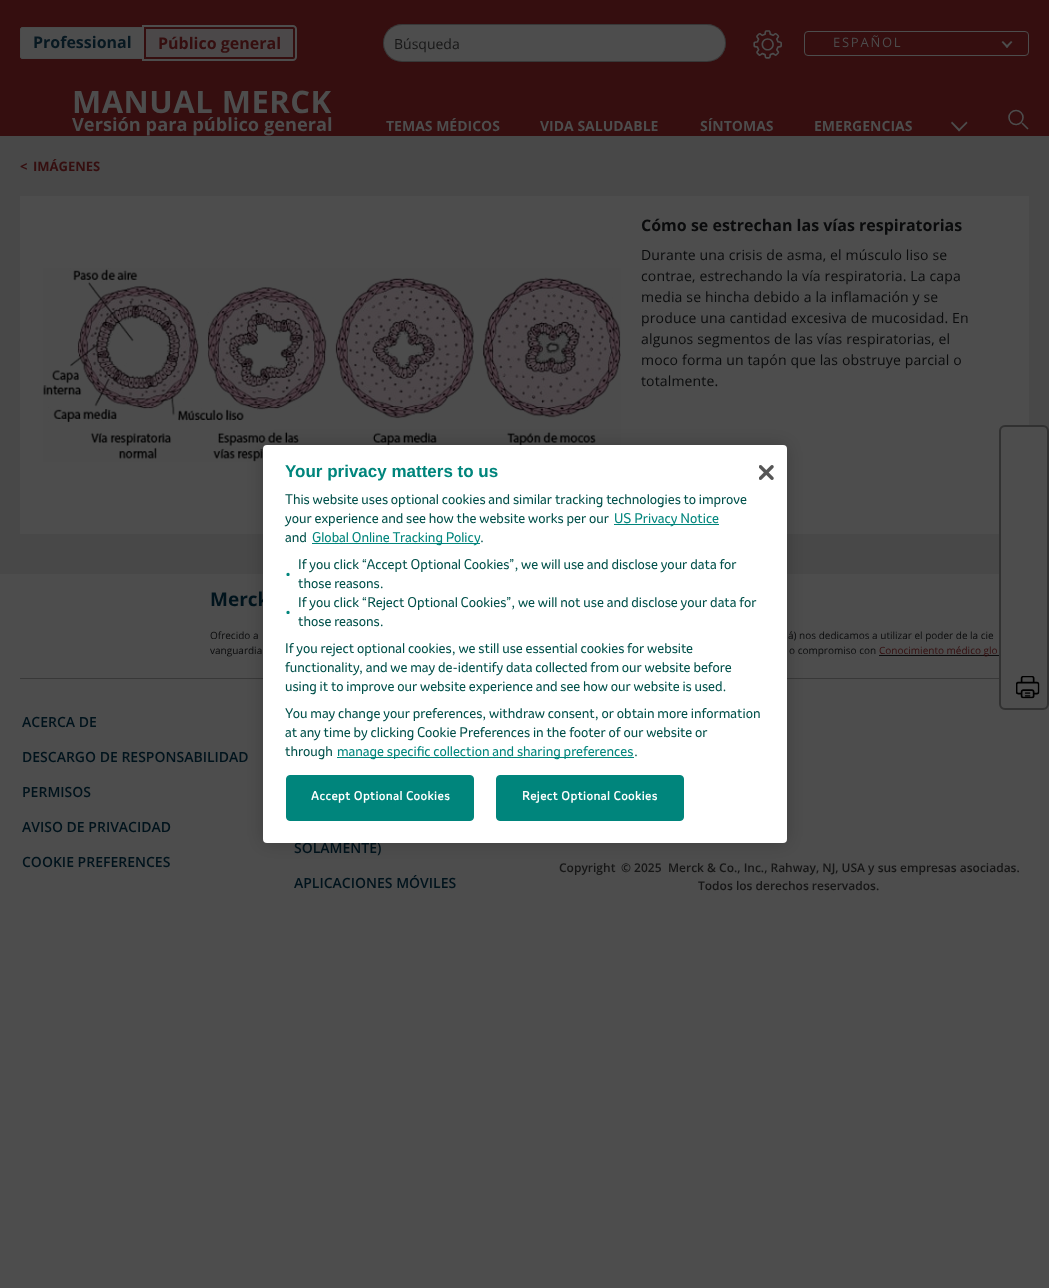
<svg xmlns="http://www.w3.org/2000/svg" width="1049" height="1288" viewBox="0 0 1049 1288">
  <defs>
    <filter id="blur1" x="-50%" y="-200%" width="200%" height="500%"><feGaussianBlur stdDeviation="9"/></filter>
  </defs>
  <rect width="100%" height="100%" fill="#484848"/>
  <rect x="0" y="0" width="1049" height="136" fill="#350e0f"/>
  <path d="M22 27.5H144.5V58.5H22C21 58.5 20.5 58 20.5 57V29C20.5 28 21 27.5 22 27.5Z" fill="#4d4d4d" stroke="#4a4b4b"/>
  <text x="33" y="48" font-family="Open Sans" font-size="16" font-weight="bold" fill="#071821">Professional</text>
  <path d="M145 28H293C293.5 28 294 28.5 294 29V57C294 57.5 293.5 58 293 58H145Z" fill="#4b4849" stroke="#350e0f" stroke-width="2"/>
  <path d="M143 26H293C294.5 26 296 27.5 296 29V57C296 58.5 294.5 60 293 60H143Z" fill="none" stroke="#4d4d4d" stroke-width="2"/>
  <text x="158" y="49" font-family="Open Sans" font-size="16" font-weight="bold" fill="#350e0f">Público general</text>
  <rect x="383" y="24" width="343" height="38" rx="19" fill="#4d4d4d"/>
  <rect x="383.5" y="24.5" width="342" height="37" rx="18.5" fill="none" stroke="#000000" stroke-opacity="0.27"/>
  <text x="394" y="49" font-family="Open Sans" font-size="14" fill="#161616">Búsqueda</text>
  <image x="753" y="30" width="29" height="29" href="img1.png"/>
  <rect x="804.5" y="31.5" width="224" height="24" rx="3.5" fill="none" stroke="#4d4d4d"/>
  <text x="833" y="47" font-family="Open Sans" font-size="13" letter-spacing="1.75" fill="#4d4d4d">ESPAÑOL</text>
  <path d="M1011 41L1012.5 42L1007 48L1005.5 46.5Z" fill="#4d4d4d"/>
  <path d="M1003 41L1008.5 46.5L1007 48L1001.5 42Z" fill="#4d4d4d"/>
  <text x="72" y="113" font-family="Open Sans" font-size="31" font-weight="bold" letter-spacing="0.5" fill="#4d4d4d">MANUAL MERCK</text>
  <text x="72" y="131" font-family="Open Sans" font-size="18.25" font-weight="bold" fill="#4d4d4d">Versión para público general</text>
  <text x="386" y="131" font-family="Open Sans" font-size="14" font-weight="bold" fill="#4d4d4d">TEMAS MÉDICOS</text>
  <text x="540" y="131" font-family="Open Sans" font-size="14" font-weight="bold" fill="#4d4d4d">VIDA SALUDABLE</text>
  <text x="700" y="131" font-family="Open Sans" font-size="14" font-weight="bold" fill="#4d4d4d">SÍNTOMAS</text>
  <text x="814" y="131" font-family="Open Sans" font-size="14" font-weight="bold" fill="#4d4d4d">EMERGENCIAS</text>
  <path d="M966.5 121.5L967.5 123L959 131.5L958 130Z" fill="#4d4d4d"/>
  <path d="M952 121.5L960.5 130L959 131.5L951 123Z" fill="#4d4d4d"/>
  <circle cx="1016" cy="117.5" r="7" fill="none" stroke="#4d4d4d" stroke-width="1.6"/>
  <path d="M1028 129L1022 123" fill="none" stroke="#4d4d4d" stroke-width="1.6"/>
  <text x="20" y="171" font-family="Open Sans" font-size="13" font-weight="bold" fill="#350e0f">&lt;</text>
  <text x="33" y="171" font-family="Open Sans" font-size="13" font-weight="bold" fill="#350e0f">IMÁGENES</text>
  <rect x="20" y="196" width="1009" height="338" fill="#4d4d4d"/>
  <image x="43" y="268" width="578" height="194" href="img2.png"/>
  <text x="641" y="231" font-family="Open Sans" font-size="16" font-weight="bold" fill="#0a0b0c">Cómo se estrechan las vías respiratorias</text>
  <text x="641" y="260" font-family="Open Sans" font-size="14" letter-spacing="0.15" fill="#0a0b0c">Durante una crisis de asma, el músculo liso se</text>
  <text x="641" y="281" font-family="Open Sans" font-size="14" letter-spacing="0.15" fill="#0a0b0c">contrae, estrechando la vía respiratoria. La capa</text>
  <text x="641" y="302" font-family="Open Sans" font-size="14" letter-spacing="0.15" fill="#0a0b0c">media se hincha debido a la inflamación y se</text>
  <text x="641" y="323" font-family="Open Sans" font-size="14" letter-spacing="0.15" fill="#0a0b0c">produce una cantidad excesiva de mucosidad. En</text>
  <text x="641" y="344" font-family="Open Sans" font-size="14" letter-spacing="0.15" fill="#0a0b0c">algunos segmentos de las vías respiratorias, el</text>
  <text x="641" y="365" font-family="Open Sans" font-size="14" letter-spacing="0.15" fill="#0a0b0c">moco forma un tapón que las obstruye parcial o</text>
  <text x="641" y="386" font-family="Open Sans" font-size="14" letter-spacing="0.15" fill="#0a0b0c">totalmente.</text>
  <rect x="0" y="574" width="1049" height="714" fill="#4d4d4d"/>
  <rect x="20" y="678" width="979" height="1" fill="#383838"/>
  <text x="210" y="606" font-family="Open Sans" font-size="19" font-weight="bold" fill="#00131c">Merck</text>
  <text x="210" y="639" font-family="Open Sans" font-size="10" fill="#0a0b0c">Ofrecido a</text>
  <text x="788" y="639" font-family="Open Sans" font-size="10" fill="#0a0b0c">á) nos dedicamos a utilizar el poder de la cie</text>
  <text x="210" y="654" font-family="Open Sans" font-size="10" fill="#0a0b0c">vanguardia</text>
  <text x="789" y="654" font-family="Open Sans" font-size="10" fill="#0a0b0c">o compromiso con</text>
  <rect x="879" y="655" width="120" height="1" fill="#0a0b0c"/>
  <text x="879" y="654" font-family="Open Sans" font-size="10" fill="#350e0f">Conocimiento médico glo</text>
  <text x="22" y="727" font-family="Open Sans" font-size="14" font-weight="600" fill="#00131c">ACERCA DE</text>
  <text x="22" y="762" font-family="Open Sans" font-size="14" font-weight="600" fill="#00131c">DESCARGO DE RESPONSABILIDAD</text>
  <text x="22" y="797" font-family="Open Sans" font-size="14" font-weight="600" fill="#00131c">PERMISOS</text>
  <text x="22" y="832" font-family="Open Sans" font-size="14" font-weight="600" fill="#00131c">AVISO DE PRIVACIDAD</text>
  <text x="294" y="853" font-family="Open Sans" font-size="14" font-weight="600" fill="#00131c">SOLAMENTE)</text>
  <text x="22" y="867" font-family="Open Sans" font-size="14" font-weight="600" fill="#00131c">COOKIE PREFERENCES</text>
  <text x="294" y="888" font-family="Open Sans" font-size="14" font-weight="600" fill="#00131c">APLICACIONES MÓVILES</text>
  <text x="559" y="872" font-family="Open Sans" font-size="12" font-weight="600" fill="#161616">Copyright</text>
  <text x="621" y="872" font-family="Open Sans" font-size="12" font-weight="600" fill="#161616">© 2025</text>
  <text x="668" y="872" font-family="Open Sans" font-size="12" font-weight="600" fill="#161616">Merck &amp; Co., Inc., Rahway, NJ, USA y sus empresas asociadas.</text>
  <text x="698" y="890" font-family="Open Sans" font-size="12" font-weight="600" fill="#161616">Todos los derechos reservados.</text>
  <rect x="1000" y="426" width="48" height="283" rx="5" fill="#4d4d4d" stroke="#313131" stroke-width="2"/>
  <image x="1016" y="676" width="24" height="23" href="img3.png"/>
  <rect x="263" y="445" width="524" height="398" rx="4" fill="#000000" fill-opacity="0.2" filter="url(#blur1)"/>
  <rect x="263" y="445" width="524" height="398" rx="4" fill="#ffffff"/>
  <text x="285" y="477" font-family="Liberation Sans" font-size="17" font-weight="bold" fill="#00857c">Your privacy matters to us</text>
  <text x="285" y="504" font-family="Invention" font-size="13" fill="#00504a">This website uses optional cookies and similar tracking technologies to improve</text>
  <text x="285" y="523" font-family="Invention" font-size="13" fill="#00504a">your experience and see how the website works per our</text>
  <rect x="614" y="524" width="105" height="1" fill="#00857c"/>
  <text x="614" y="523" font-family="Invention" font-size="13" fill="#00857c">US Privacy Notice</text>
  <text x="285" y="542" font-family="Invention" font-size="13" fill="#00504a">and</text>
  <rect x="312" y="543" width="168" height="1" fill="#00857c"/>
  <text x="312" y="542" font-family="Invention" font-size="13" fill="#00857c">Global Online Tracking Policy</text>
  <text x="480" y="542" font-family="Invention" font-size="13" fill="#00504a">.</text>
  <text x="298" y="569" font-family="Invention" font-size="13" fill="#00504a">If you click “Accept Optional Cookies”, we will use and disclose your data for</text>
  <text x="285" y="579" font-family="Invention" font-size="16" fill="#00857c">•</text>
  <text x="298" y="588" font-family="Invention" font-size="13" fill="#00504a">those reasons.</text>
  <text x="298" y="607" font-family="Invention" font-size="13" fill="#00504a">If you click “Reject Optional Cookies”, we will not use and disclose your data for</text>
  <text x="285" y="617" font-family="Invention" font-size="16" fill="#00857c">•</text>
  <text x="298" y="626" font-family="Invention" font-size="13" fill="#00504a">those reasons.</text>
  <text x="285" y="653" font-family="Invention" font-size="13" fill="#00504a">If you reject optional cookies, we still use essential cookies for website</text>
  <text x="285" y="672" font-family="Invention" font-size="13" fill="#00504a">functionality, and we may de-identify data collected from our website before</text>
  <text x="285" y="691" font-family="Invention" font-size="13" fill="#00504a">using it to improve our website experience and see how our website is used.</text>
  <text x="285" y="718" font-family="Invention" font-size="13" fill="#00504a">You may change your preferences, withdraw consent, or obtain more information</text>
  <text x="285" y="737" font-family="Invention" font-size="13" fill="#00504a">at any time by clicking Cookie Preferences in the footer of our website or</text>
  <text x="285" y="756" font-family="Invention" font-size="13" fill="#00504a">through</text>
  <rect x="337" y="757" width="297" height="1" fill="#00857c"/>
  <text x="337" y="756" font-family="Invention" font-size="13" fill="#00857c">manage specific collection and sharing preferences</text>
  <text x="634" y="756" font-family="Invention" font-size="13" fill="#00504a">.</text>
  <image x="759" y="465" width="15" height="15" href="img4.png"/>
  <rect x="286.5" y="775.5" width="187" height="45" rx="3.5" fill="#00857c" stroke="#00857c"/>
  <text x="311" y="800" font-family="Invention" font-size="11.4" font-weight="bold" letter-spacing="0.6" fill="#ffffff">Accept Optional Cookies</text>
  <rect x="496.5" y="775.5" width="187" height="45" rx="3.5" fill="#00857c" stroke="#00857c"/>
  <text x="522" y="800" font-family="Invention" font-size="11.4" font-weight="bold" letter-spacing="0.6" fill="#ffffff">Reject Optional Cookies</text>
</svg>
